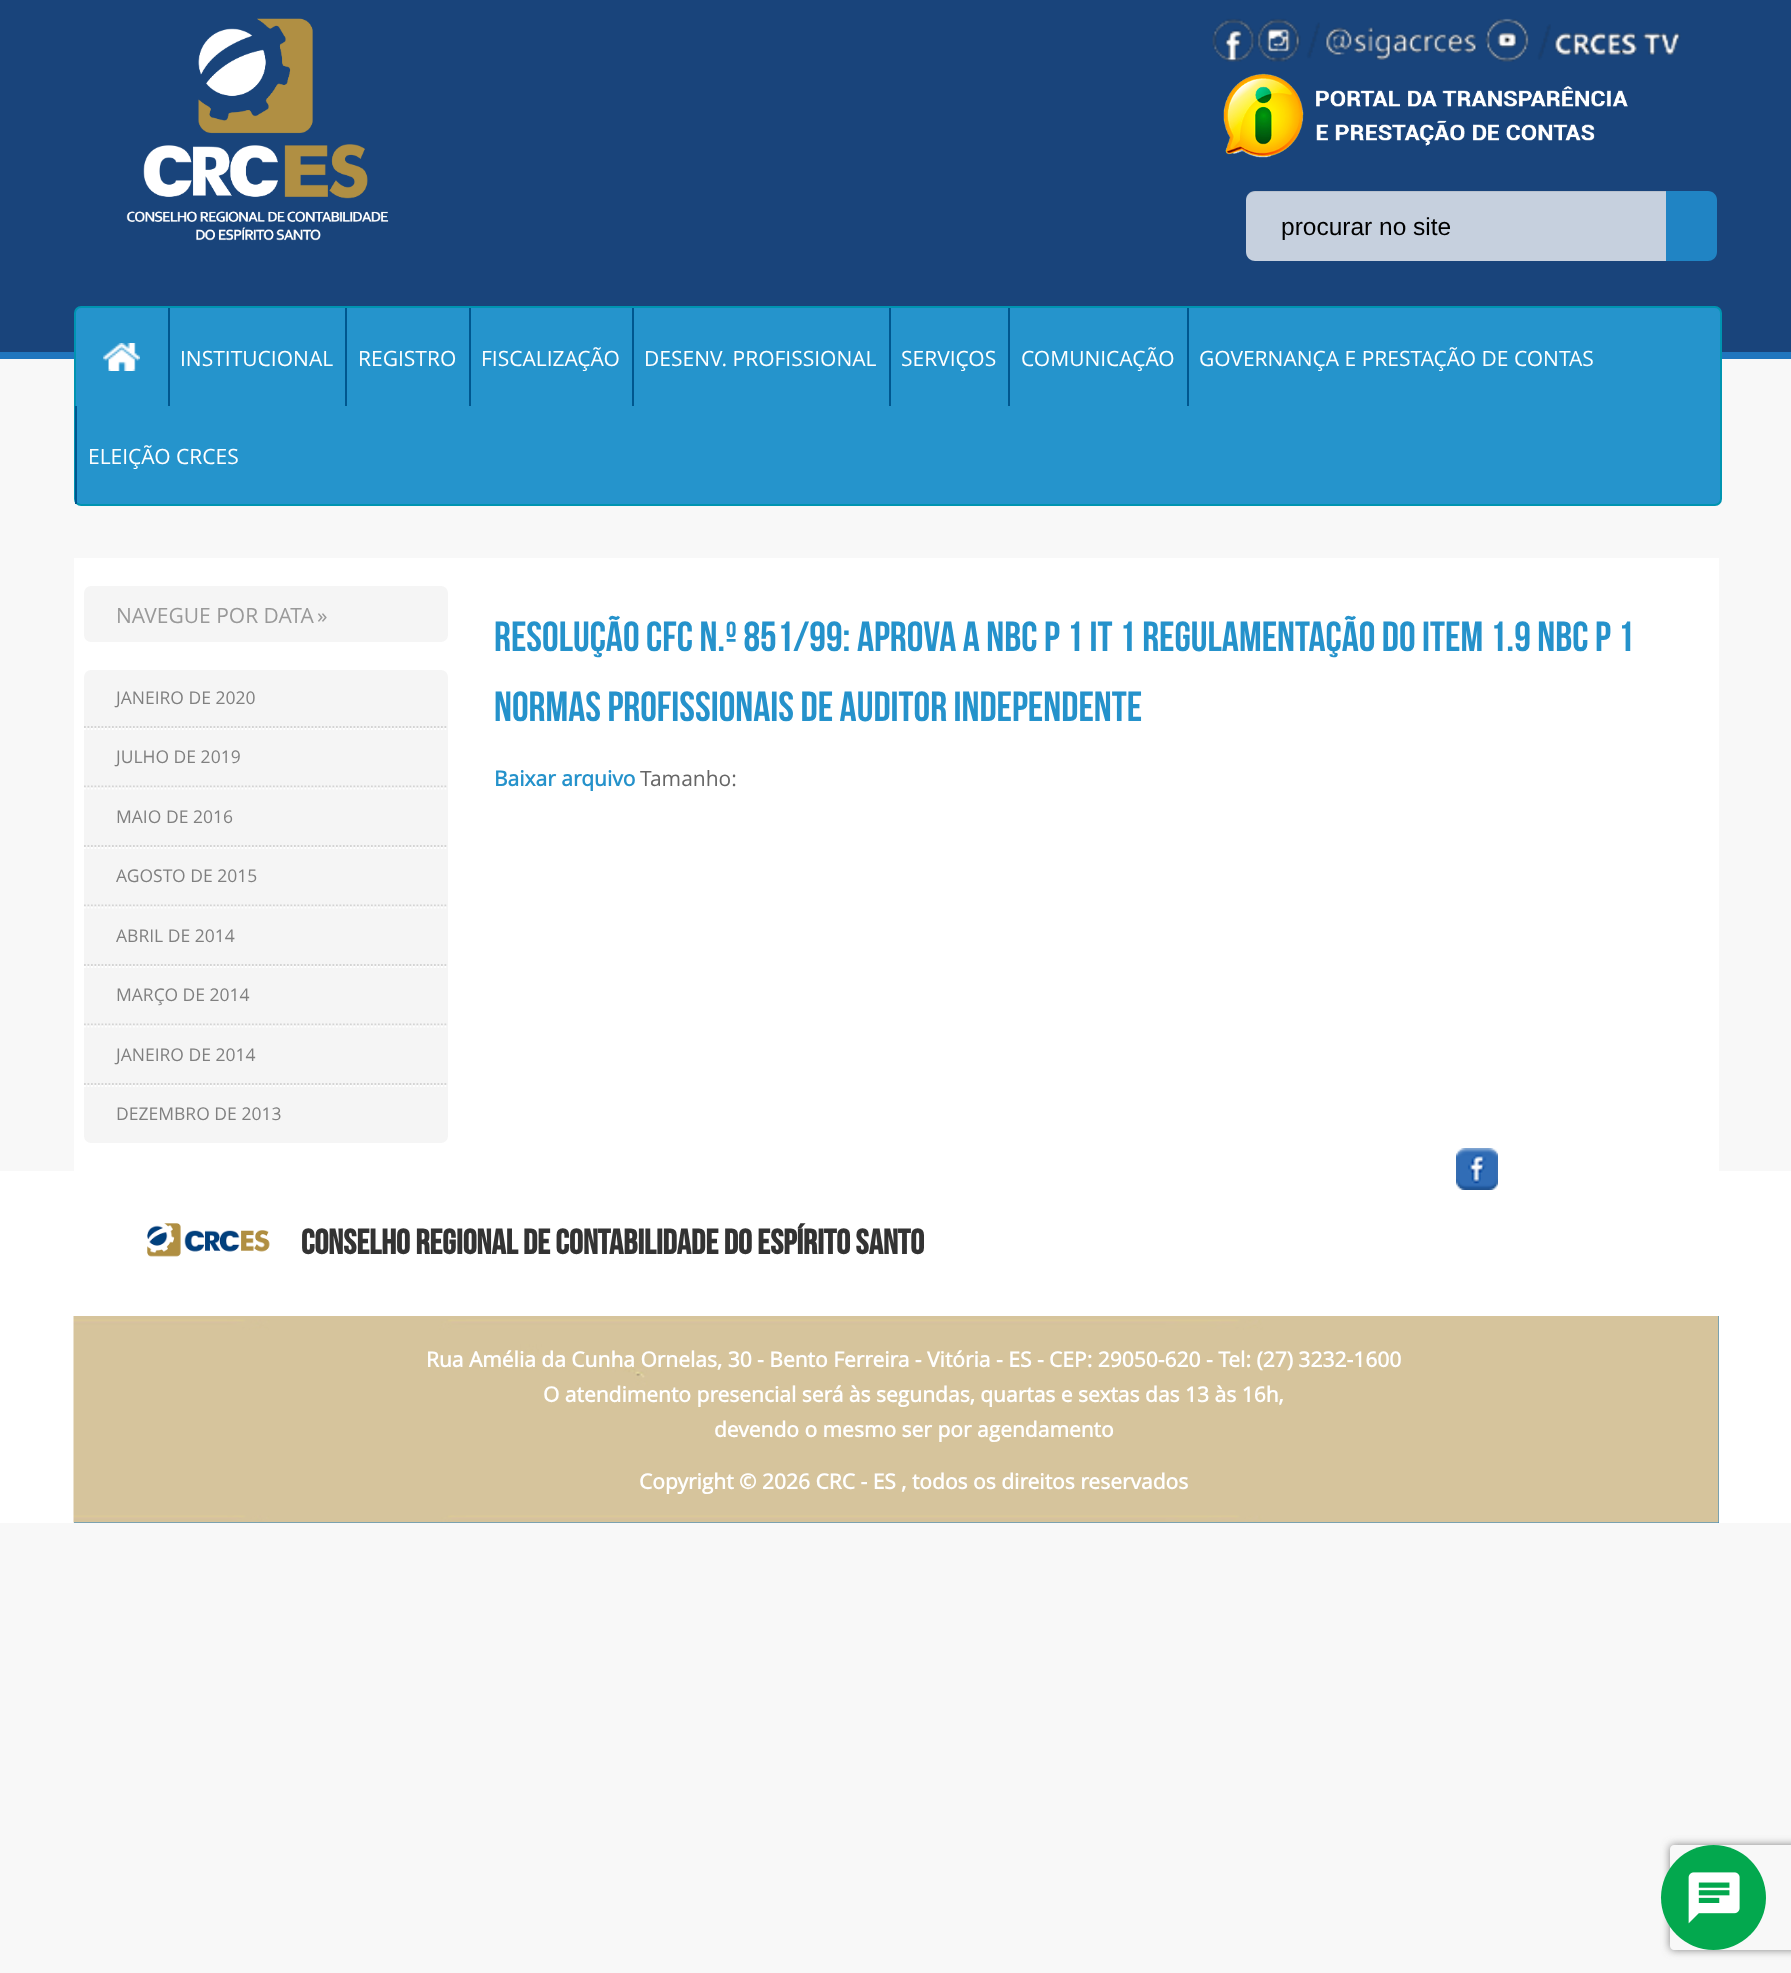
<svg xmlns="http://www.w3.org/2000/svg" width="1791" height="1973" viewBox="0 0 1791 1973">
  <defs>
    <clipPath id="clip1"><path d="M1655 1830H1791V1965H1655ZM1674 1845H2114C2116 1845 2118 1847 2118 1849V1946C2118 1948 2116 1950 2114 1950H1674C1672 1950 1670 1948 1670 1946V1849C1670 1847 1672 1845 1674 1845Z" clip-rule="evenodd"/></clipPath>
    <filter id="blur1" x="-50%" y="-200%" width="200%" height="500%"><feGaussianBlur stdDeviation="4.5"/></filter>
  </defs>
  <rect width="100%" height="100%" fill="#f8f8f8"/>
  <rect x="0" y="0" width="1791" height="352" fill="#19447b"/>
  <rect x="0" y="352" width="1791" height="7" fill="#2076be"/>
  <image x="126" y="18" width="263" height="223" href="img1.png"/>
  <image x="1212" y="18" width="469" height="44" href="img2.png"/>
  <image x="1223" y="73" width="405" height="85" href="img3.png"/>
  <path d="M1255 191H1666V261H1255C1250 261 1246 257 1246 252V200C1246 195 1250 191 1255 191Z" fill="#c6d0de"/>
  <path d="M1255 192H1666V191H1255C1249 191 1246 196 1246 201C1246 196 1250 192 1255 192Z" fill="#000000" fill-opacity="0.07"/>
  <text x="1281" y="235" font-family="Liberation Sans" font-size="24.5" fill="#000000">procurar no site</text>
  <path d="M1666 191H1708C1713 191 1717 195 1717 200V252C1717 257 1713 261 1708 261H1666Z" fill="#2084c4"/>
  <rect x="75" y="307" width="1646" height="198" rx="6" fill="#2594cc" stroke="#0094b1" stroke-width="2"/>
  <image x="103" y="343" width="37" height="28" href="img4.png"/>
  <rect x="168" y="308" width="2" height="98" fill="#00578f"/>
  <text x="180" y="366" font-family="Open Sans" font-size="21" fill="#ffffff">INSTITUCIONAL</text>
  <rect x="345" y="308" width="2" height="98" fill="#00578f"/>
  <text x="358" y="366" font-family="Open Sans" font-size="21" fill="#ffffff">REGISTRO</text>
  <rect x="469" y="308" width="2" height="98" fill="#00578f"/>
  <text x="481" y="366" font-family="Open Sans" font-size="21" fill="#ffffff">FISCALIZAÇÃO</text>
  <rect x="632" y="308" width="2" height="98" fill="#00578f"/>
  <text x="644" y="366" font-family="Open Sans" font-size="21" fill="#ffffff">DESENV. PROFISSIONAL</text>
  <rect x="889" y="308" width="2" height="98" fill="#00578f"/>
  <text x="901" y="366" font-family="Open Sans" font-size="21" fill="#ffffff">SERVIÇOS</text>
  <rect x="1008" y="308" width="2" height="98" fill="#00578f"/>
  <text x="1021" y="366" font-family="Open Sans" font-size="21" fill="#ffffff">COMUNICAÇÃO</text>
  <rect x="1187" y="308" width="2" height="98" fill="#00578f"/>
  <text x="1199" y="366" font-family="Open Sans" font-size="21" fill="#ffffff">GOVERNANÇA E PRESTAÇÃO DE CONTAS</text>
  <rect x="75" y="406" width="2" height="98" fill="#00578f"/>
  <text x="88" y="464" font-family="Open Sans" font-size="21" fill="#ffffff">ELEIÇÃO CRCES</text>
  <rect x="74" y="558" width="1645" height="613" fill="#ffffff"/>
  <rect x="84" y="586" width="364" height="56" rx="7" fill="#f5f5f5"/>
  <text x="116" y="623" font-family="Open Sans" font-size="21" fill="#999999">NAVEGUE POR DATA</text>
  <text x="317" y="623" font-family="Open Sans" font-size="21" fill="#999999">»</text>
  <rect x="84" y="670" width="364" height="473" rx="7" fill="#f5f5f5"/>
  <path d="M84 727H448" fill="none" stroke="#d4d4d4" stroke-width="1.8" stroke-dasharray="1.75 1.75"/>
  <text x="116" y="704" font-family="Open Sans" font-size="17.5" fill="#808080">JANEIRO DE 2020</text>
  <path d="M84 729H448" fill="none" stroke="#ffffff" stroke-width="1.8" stroke-dasharray="1.75 1.75"/>
  <path d="M84 786.5H448" fill="none" stroke="#d4d4d4" stroke-width="1.8" stroke-dasharray="1.75 1.75"/>
  <text x="116" y="763" font-family="Open Sans" font-size="17.5" fill="#808080">JULHO DE 2019</text>
  <path d="M84 788.5H448" fill="none" stroke="#ffffff" stroke-width="1.8" stroke-dasharray="1.75 1.75"/>
  <path d="M84 846H448" fill="none" stroke="#d4d4d4" stroke-width="1.8" stroke-dasharray="1.75 1.75"/>
  <text x="116" y="823" font-family="Open Sans" font-size="17.5" fill="#808080">MAIO DE 2016</text>
  <path d="M84 848H448" fill="none" stroke="#ffffff" stroke-width="1.8" stroke-dasharray="1.75 1.75"/>
  <path d="M84 905.5H448" fill="none" stroke="#d4d4d4" stroke-width="1.8" stroke-dasharray="1.75 1.75"/>
  <text x="116" y="882" font-family="Open Sans" font-size="17.5" fill="#808080">AGOSTO DE 2015</text>
  <path d="M84 907.5H448" fill="none" stroke="#ffffff" stroke-width="1.8" stroke-dasharray="1.75 1.75"/>
  <path d="M84 965H448" fill="none" stroke="#d4d4d4" stroke-width="1.8" stroke-dasharray="1.75 1.75"/>
  <text x="116" y="942" font-family="Open Sans" font-size="17.5" fill="#808080">ABRIL DE 2014</text>
  <path d="M84 967H448" fill="none" stroke="#ffffff" stroke-width="1.8" stroke-dasharray="1.75 1.75"/>
  <path d="M84 1024.5H448" fill="none" stroke="#d4d4d4" stroke-width="1.8" stroke-dasharray="1.75 1.75"/>
  <text x="116" y="1001" font-family="Open Sans" font-size="17.5" fill="#808080">MARÇO DE 2014</text>
  <path d="M84 1026.5H448" fill="none" stroke="#ffffff" stroke-width="1.8" stroke-dasharray="1.75 1.75"/>
  <path d="M84 1084H448" fill="none" stroke="#d4d4d4" stroke-width="1.8" stroke-dasharray="1.75 1.75"/>
  <text x="116" y="1061" font-family="Open Sans" font-size="17.5" fill="#808080">JANEIRO DE 2014</text>
  <path d="M84 1086H448" fill="none" stroke="#ffffff" stroke-width="1.8" stroke-dasharray="1.75 1.75"/>
  <text x="116" y="1120" font-family="Open Sans" font-size="17.5" fill="#808080">DEZEMBRO DE 2013</text>
  <text x="494" y="651" font-family="Bebas Neue" font-size="42" fill="#2592cb">RESOLUÇÃO CFC N.º 851/99: APROVA A NBC P 1 IT 1 REGULAMENTAÇÃO DO ITEM 1.9 NBC P 1</text>
  <text x="494" y="721" font-family="Bebas Neue" font-size="42" fill="#2592cb">NORMAS PROFISSIONAIS DE AUDITOR INDEPENDENTE</text>
  <text x="494" y="786" font-family="Open Sans" font-size="21" font-weight="bold" fill="#2592cb">Baixar arquivo</text>
  <text x="640" y="786" font-family="Open Sans" font-size="21" fill="#666666">Tamanho:</text>
  <rect x="0" y="1171" width="1791" height="352" fill="#ffffff"/>
  <image x="1456" y="1148" width="42" height="42" href="img5.png"/>
  <image x="147" y="1223" width="123" height="34" href="img6.png"/>
  <text x="301" y="1254" font-family="Bebas Neue" font-size="35" font-weight="bold" fill="#333333">CONSELHO REGIONAL DE CONTABILIDADE DO ESPÍRITO SANTO</text>
  <rect x="74" y="1316" width="1645" height="207" fill="#2081c3"/>
  <image x="73" y="1316" width="1646" height="207" href="img7.png"/>
  <text x="426" y="1367" font-family="Open Sans" font-size="21" font-weight="bold" fill="#ffffff">Rua Amélia da Cunha Ornelas, 30 - Bento Ferreira - Vitória - ES - CEP: 29050-620 - Tel: (27) 3232-1600</text>
  <text x="543" y="1402" font-family="Open Sans" font-size="21" font-weight="bold" fill="#ffffff">O atendimento presencial será às segundas, quartas e sextas das 13 às 16h,</text>
  <text x="714" y="1437" font-family="Open Sans" font-size="21" font-weight="bold" fill="#ffffff">devendo o mesmo ser por agendamento</text>
  <text x="639" y="1489" font-family="Open Sans" font-size="21" font-weight="bold" fill="#ffffff">Copyright © 2026 CRC - ES , todos os direitos reservados</text>
  <g clip-path="url(#clip1)">
    <rect x="1670" y="1845" width="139" height="105" rx="4" fill="#808080" filter="url(#blur1)"/>
  </g>
  <circle cx="1713.5" cy="1897.5" r="52.5" fill="#03a84e"/>
  <image x="1688" y="1872" width="52" height="52" href="img8.png"/>
</svg>
